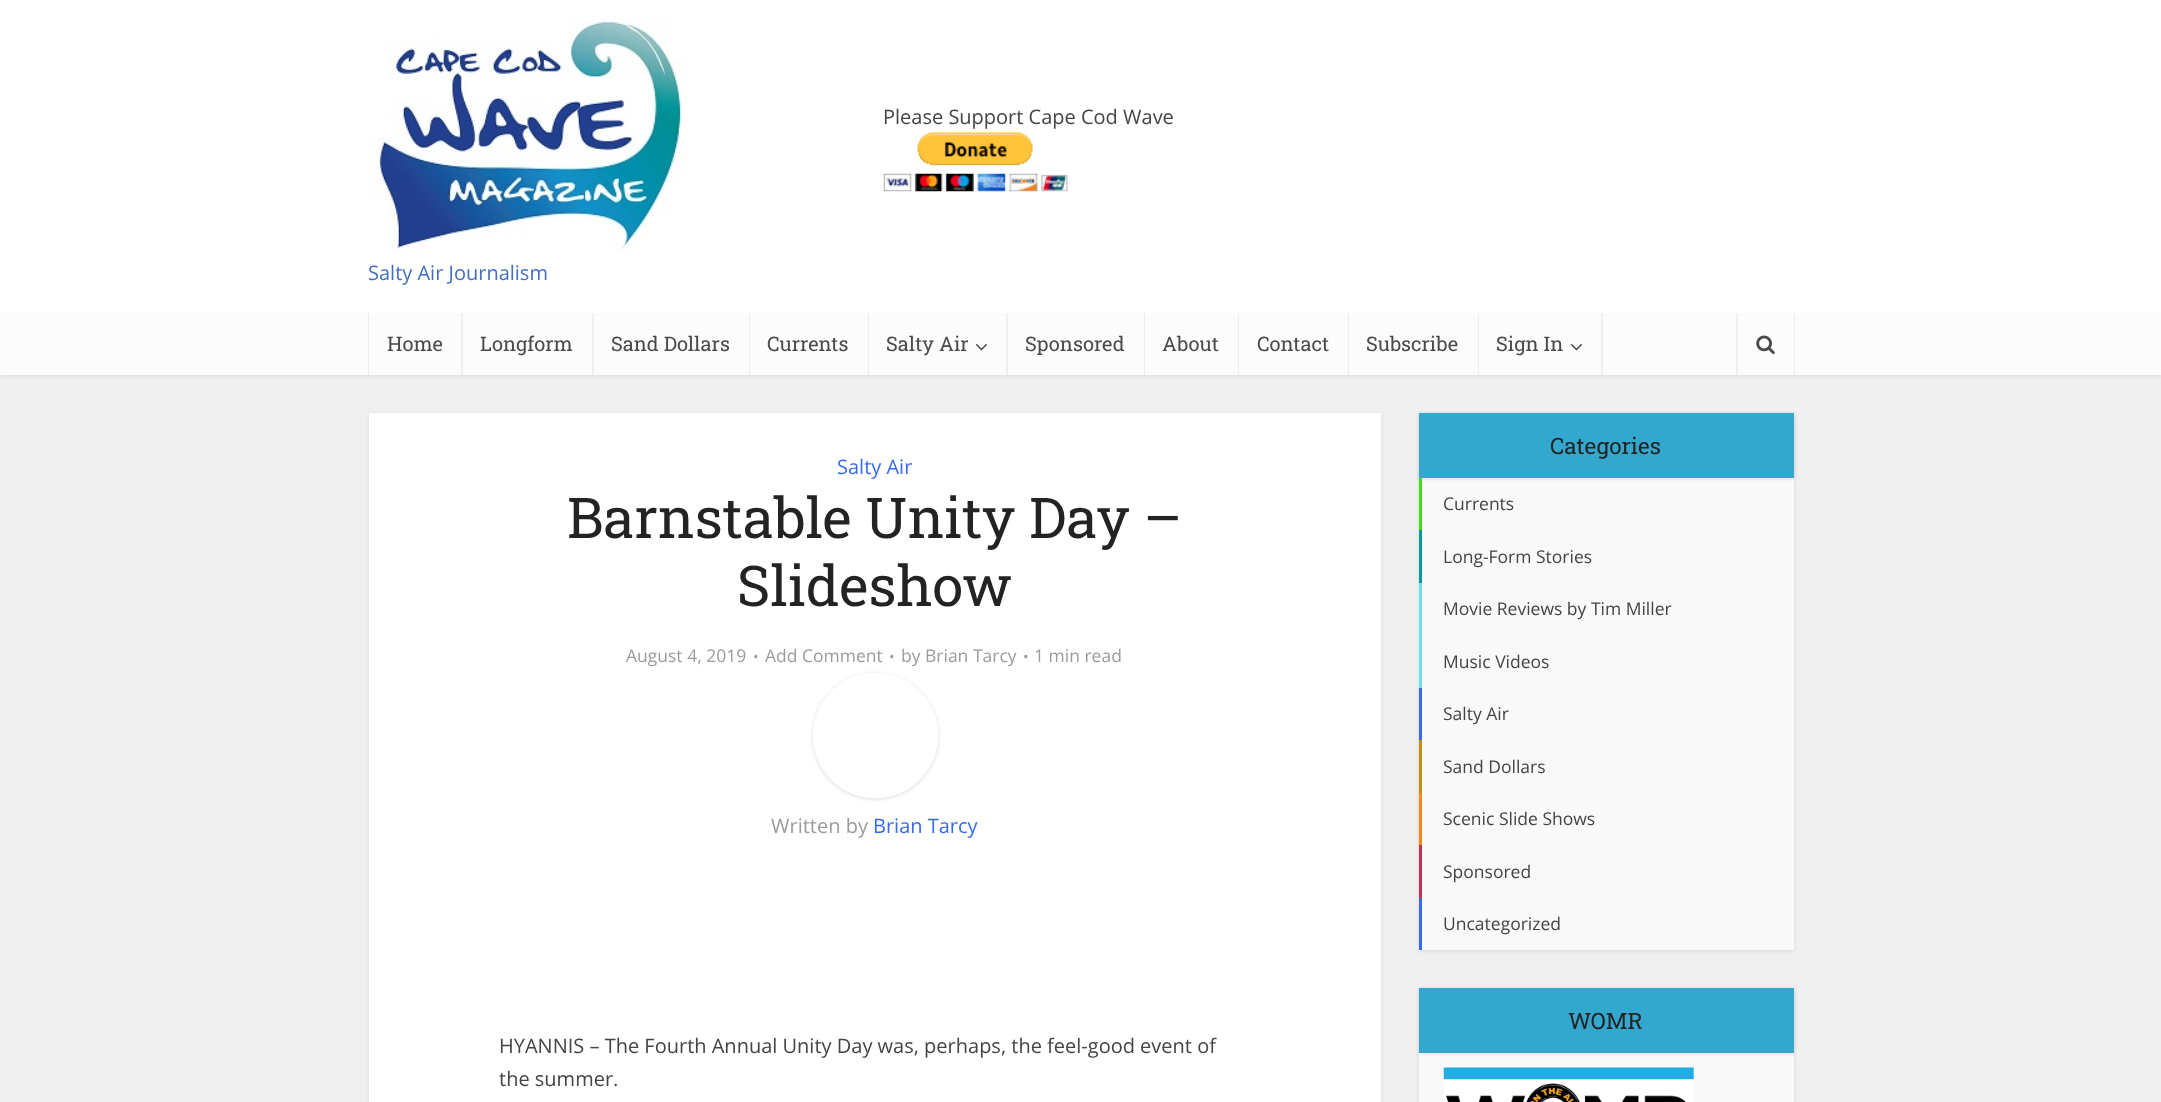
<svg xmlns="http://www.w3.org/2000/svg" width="2161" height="1102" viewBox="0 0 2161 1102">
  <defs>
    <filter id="blur1" x="-50%" y="-200%" width="200%" height="500%"><feGaussianBlur stdDeviation="2"/></filter>
    <clipPath id="clip1"><path d="M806 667H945V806H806ZM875.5 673C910 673 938 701 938 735.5C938 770 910 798 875.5 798C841 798 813 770 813 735.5C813 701 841 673 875.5 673Z" clip-rule="evenodd"/></clipPath>
  </defs>
  <rect width="100%" height="100%" fill="#f0f0f0"/>
  <rect x="0" y="1" width="2161" height="375" fill="#000000" fill-opacity="0.1" filter="url(#blur1)"/>
  <rect x="0" y="0" width="2161" height="313" fill="#ffffff"/>
  <text x="883" y="124" font-family="Open Sans" font-size="20" fill="#444444">Please Support Cape Cod Wave</text>
  <image x="883" y="132" width="185" height="60" href="img1.png"/>
  <image x="369" y="19" width="317" height="232" href="img2.png"/>
  <text x="368" y="280" font-family="Open Sans" font-size="20" fill="#4270bf">Salty Air Journalism</text>
  <rect x="0" y="313" width="2161" height="62" fill="#fcfcfc"/>
  <rect x="461" y="313" width="2" height="62" fill="#efefef"/>
  <rect x="368" y="313" width="1" height="62" fill="#efefef"/>
  <text x="387" y="351" font-family="Roboto Slab" font-size="20" fill="#4a4a4a">Home</text>
  <rect x="592" y="313" width="2" height="62" fill="#efefef"/>
  <text x="480" y="351" font-family="Roboto Slab" font-size="20" fill="#4a4a4a">Longform</text>
  <rect x="749" y="313" width="1" height="62" fill="#efefef"/>
  <text x="611" y="351" font-family="Roboto Slab" font-size="20" fill="#4a4a4a">Sand Dollars</text>
  <rect x="868" y="313" width="1" height="62" fill="#efefef"/>
  <text x="767" y="351" font-family="Roboto Slab" font-size="20" fill="#4a4a4a">Currents</text>
  <rect x="1006" y="313" width="2" height="62" fill="#efefef"/>
  <text x="886" y="351" font-family="Roboto Slab" font-size="20" fill="#4a4a4a">Salty Air</text>
  <image x="975" y="343" width="12" height="8" href="img3.png"/>
  <rect x="1144" y="313" width="1" height="62" fill="#efefef"/>
  <text x="1025" y="351" font-family="Roboto Slab" font-size="20" fill="#4a4a4a">Sponsored</text>
  <rect x="1238" y="313" width="1" height="62" fill="#efefef"/>
  <text x="1162" y="351" font-family="Roboto Slab" font-size="20" fill="#4a4a4a">About</text>
  <rect x="1348" y="313" width="1" height="62" fill="#efefef"/>
  <text x="1257" y="351" font-family="Roboto Slab" font-size="20" fill="#4a4a4a">Contact</text>
  <rect x="1478" y="313" width="1" height="62" fill="#efefef"/>
  <text x="1366" y="351" font-family="Roboto Slab" font-size="20" fill="#4a4a4a">Subscribe</text>
  <rect x="1601" y="313" width="2" height="62" fill="#efefef"/>
  <text x="1496" y="351" font-family="Roboto Slab" font-size="20" fill="#4a4a4a">Sign In</text>
  <image x="1570" y="343" width="12" height="8" href="img3.png"/>
  <rect x="1794" y="313" width="1" height="62" fill="#efefef"/>
  <rect x="1736" y="313" width="2" height="62" fill="#efefef"/>
  <image x="1756" y="335" width="19" height="20" href="img4.png"/>
  <rect x="369" y="414" width="1012" height="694" fill="#000000" fill-opacity="0.1" filter="url(#blur1)"/>
  <rect x="369" y="413" width="1012" height="689" fill="#ffffff"/>
  <text x="837" y="474" font-family="Open Sans" font-size="20" fill="#376bef">Salty Air</text>
  <text x="567" y="538" font-family="Roboto Slab" font-size="56.25" fill="#232323">Barnstable Unity Day –</text>
  <text x="737" y="606" font-family="Roboto Slab" font-size="56.25" fill="#232323">Slideshow</text>
  <text x="626" y="662" font-family="Open Sans" font-size="17.5" fill="#9b9b9b">August 4, 2019</text>
  <text x="753" y="662" font-family="Open Sans" font-size="15" fill="#9b9b9b">•</text>
  <text x="765" y="662" font-family="Open Sans" font-size="17.5" fill="#9b9b9b">Add Comment</text>
  <text x="889" y="662" font-family="Open Sans" font-size="15" fill="#9b9b9b">•</text>
  <text x="901" y="662" font-family="Open Sans" font-size="17.5" fill="#9b9b9b">by Brian Tarcy</text>
  <text x="1023" y="662" font-family="Open Sans" font-size="15" fill="#9b9b9b">•</text>
  <text x="1034" y="662" font-family="Open Sans" font-size="17.5" fill="#9b9b9b">1 min read</text>
  <g clip-path="url(#clip1)">
    <rect x="813" y="674" width="125" height="125" rx="62.5" fill="#000000" fill-opacity="0.15" filter="url(#blur1)"/>
  </g>
  <circle cx="875.5" cy="735.5" r="59.5" fill="none" stroke="#ffffff" stroke-width="6"/>
  <text x="771" y="833" font-family="Open Sans" font-size="20" fill="#9b9b9b">Written by</text>
  <text x="873" y="833" font-family="Open Sans" font-size="20" fill="#376bef">Brian Tarcy</text>
  <text x="499" y="1053" font-family="Open Sans" font-size="20" fill="#444444">HYANNIS – The Fourth Annual Unity Day was, perhaps, the feel-good event of</text>
  <text x="499" y="1086" font-family="Open Sans" font-size="20" fill="#444444">the summer.</text>
  <rect x="1419" y="414" width="375" height="537" fill="#000000" fill-opacity="0.1" filter="url(#blur1)"/>
  <rect x="1422" y="478" width="372" height="472" fill="#f9f9f9"/>
  <rect x="1419" y="414" width="375" height="65" fill="#000000" fill-opacity="0.1" filter="url(#blur1)"/>
  <rect x="1419" y="413" width="375" height="65" fill="#33a7ce"/>
  <text x="1550" y="454" font-family="Roboto Slab" font-size="22.5" fill="#232323">Categories</text>
  <rect x="1419" y="478" width="3" height="52" fill="#3fdd13"/>
  <text x="1443" y="510" font-family="Open Sans" font-size="17.5" fill="#444444">Currents</text>
  <rect x="1419" y="530" width="3" height="53" fill="#009e9b"/>
  <text x="1443" y="563" font-family="Open Sans" font-size="17.5" fill="#444444">Long-Form Stories</text>
  <rect x="1419" y="583" width="3" height="105" fill="#6de0ed"/>
  <text x="1443" y="615" font-family="Open Sans" font-size="17.5" fill="#444444">Movie Reviews by Tim Miller</text>
  <text x="1443" y="668" font-family="Open Sans" font-size="17.5" fill="#444444">Music Videos</text>
  <rect x="1419" y="688" width="3" height="52" fill="#376bef"/>
  <text x="1443" y="720" font-family="Open Sans" font-size="17.5" fill="#444444">Salty Air</text>
  <rect x="1419" y="740" width="3" height="53" fill="#c48d0d"/>
  <text x="1443" y="773" font-family="Open Sans" font-size="17.5" fill="#444444">Sand Dollars</text>
  <rect x="1419" y="793" width="3" height="52" fill="#fc8711"/>
  <text x="1443" y="825" font-family="Open Sans" font-size="17.5" fill="#444444">Scenic Slide Shows</text>
  <rect x="1419" y="845" width="3" height="53" fill="#c1325b"/>
  <text x="1443" y="878" font-family="Open Sans" font-size="17.5" fill="#444444">Sponsored</text>
  <rect x="1419" y="898" width="3" height="52" fill="#376bef"/>
  <text x="1443" y="930" font-family="Open Sans" font-size="17.5" fill="#444444">Uncategorized</text>
  <rect x="1419" y="989" width="375" height="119" fill="#000000" fill-opacity="0.1" filter="url(#blur1)"/>
  <rect x="1419" y="1053" width="375" height="49" fill="#f9f9f9"/>
  <rect x="1419" y="989" width="375" height="65" fill="#000000" fill-opacity="0.1" filter="url(#blur1)"/>
  <rect x="1419" y="988" width="375" height="65" fill="#33a7ce"/>
  <text x="1568" y="1029" font-family="Roboto Slab" font-size="22.5" fill="#232323">WOMR</text>
  <image x="1443" y="1067" width="251" height="35" href="img5.png"/>
</svg>
